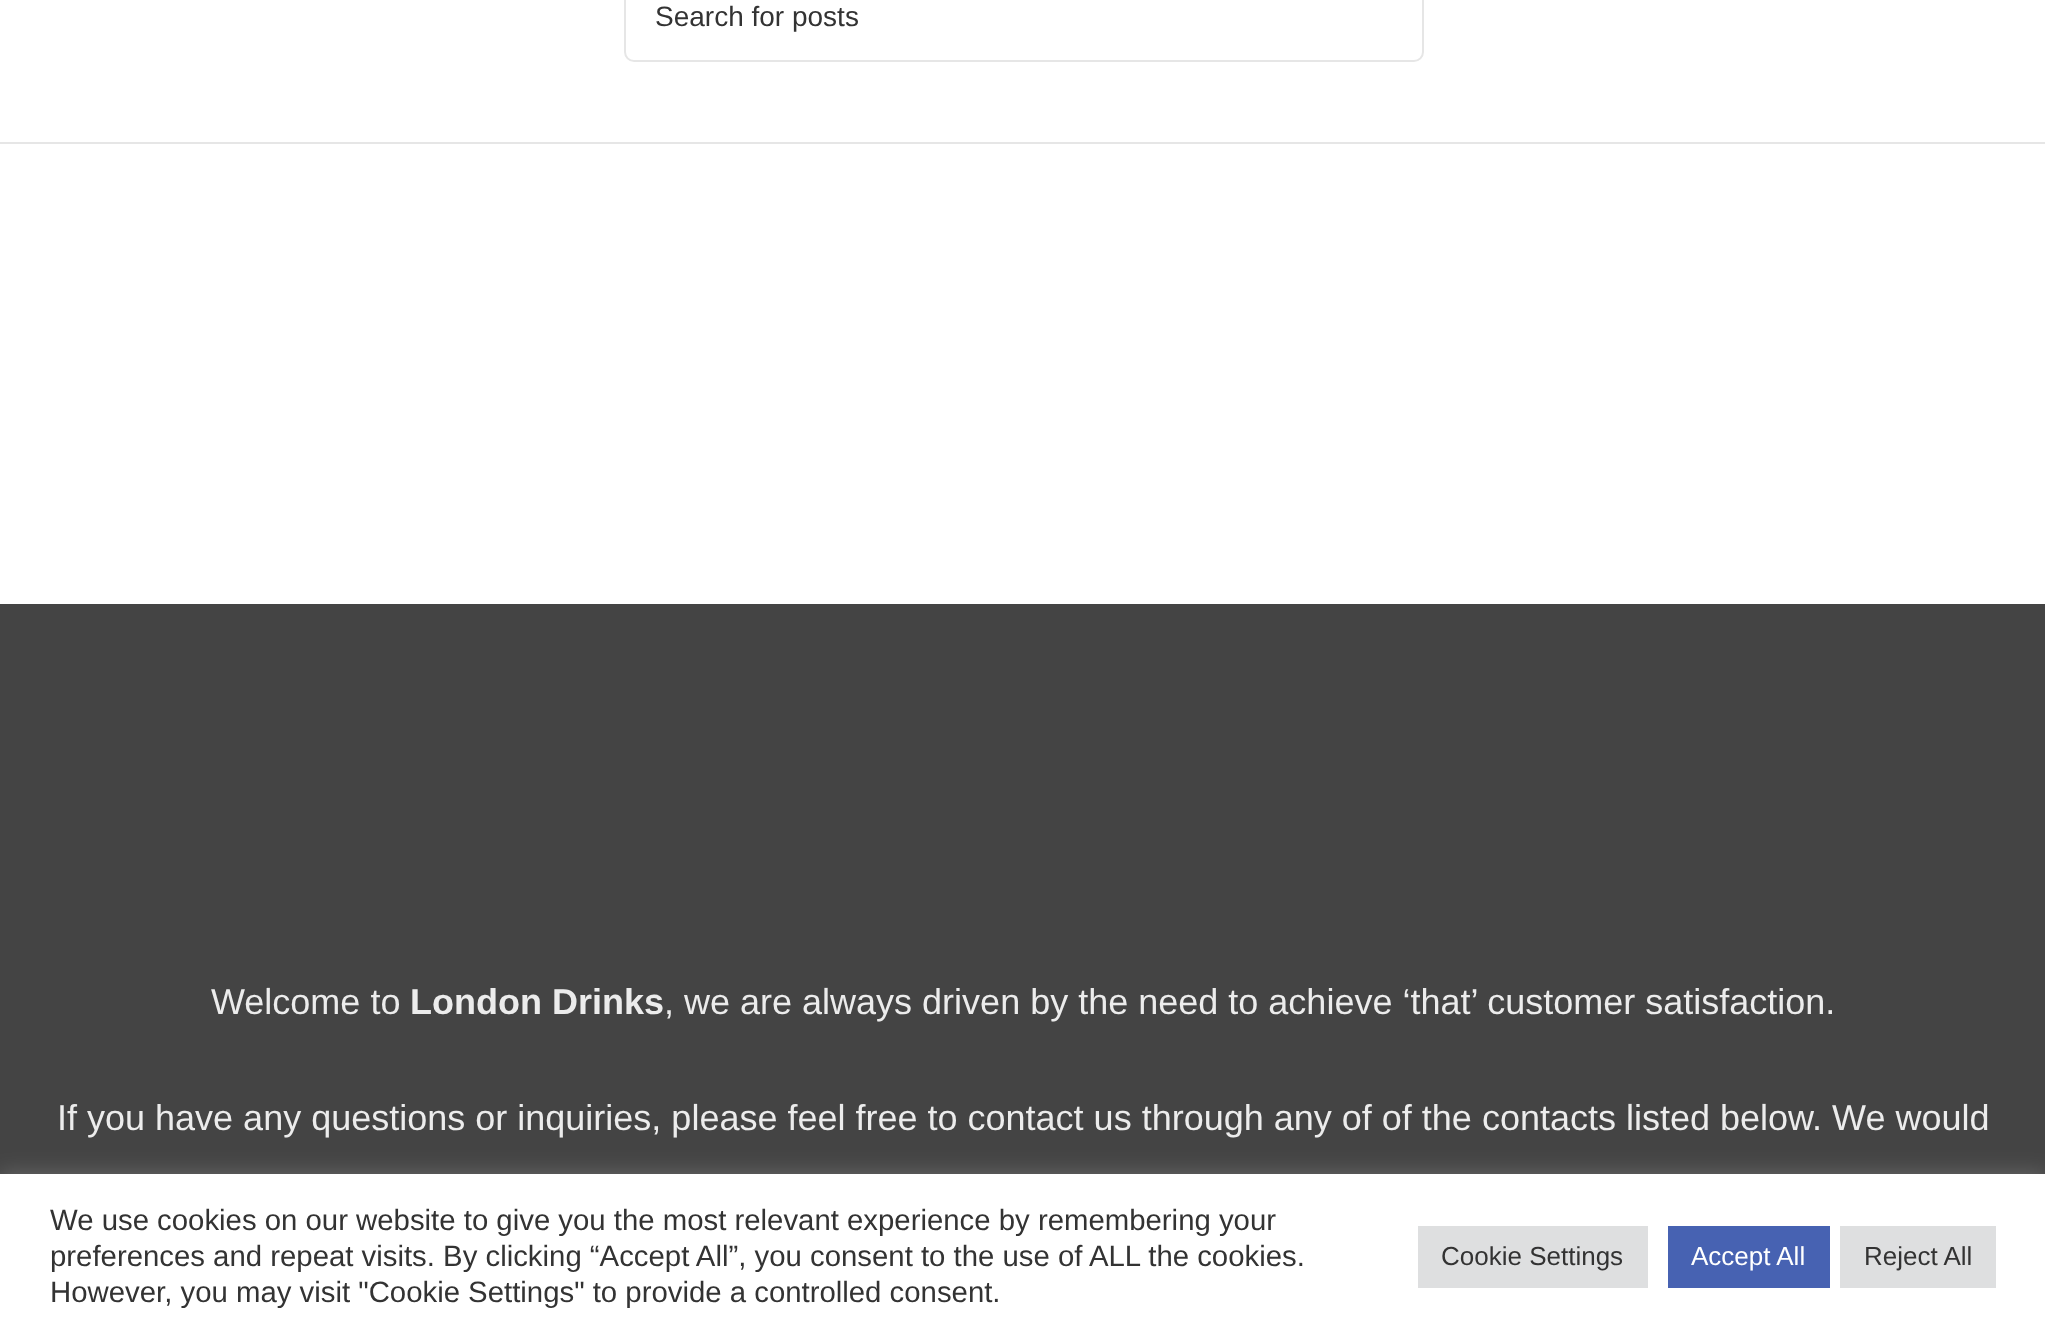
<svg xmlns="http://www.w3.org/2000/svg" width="2045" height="1337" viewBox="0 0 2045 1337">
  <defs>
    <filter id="blur1" x="-50%" y="-200%" width="200%" height="500%"><feGaussianBlur stdDeviation="10"/></filter>
  </defs>
  <rect width="100%" height="100%" fill="#ffffff"/>
  <rect x="625" y="-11" width="798" height="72" rx="9" fill="none" stroke="#e6e6e6" stroke-width="2"/>
  <text x="655" y="26" font-family="Liberation Sans" font-size="28" fill="#333333">Search for posts</text>
  <rect x="0" y="142" width="2045" height="2" fill="#e6e6e6"/>
  <rect x="0" y="604" width="2045" height="570" fill="#444444"/>
  <text x="211" y="1014" font-family="Liberation Sans" font-size="36" fill="#ececec">Welcome to</text>
  <text x="410" y="1014" font-family="Liberation Sans" font-size="36" font-weight="bold" fill="#ececec">London Drinks</text>
  <text x="664" y="1014" font-family="Liberation Sans" font-size="36" fill="#ececec">, we are always driven by the need to achieve ‘that’ customer satisfaction.</text>
  <text x="57" y="1130" font-family="Liberation Sans" font-size="36" fill="#ececec">If you have any questions or inquiries, please feel free to contact us through any of of the contacts listed below. We would</text>
  <rect x="0" y="1172" width="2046" height="164" fill="#acabab" fill-opacity="0.3" filter="url(#blur1)"/>
  <rect x="0" y="1174" width="2045" height="163" fill="#ffffff"/>
  <text x="50" y="1230" font-family="Liberation Sans" font-size="29.35" fill="#333333">We use cookies on our website to give you the most relevant experience by remembering your</text>
  <text x="50" y="1266" font-family="Liberation Sans" font-size="29.35" fill="#333333">preferences and repeat visits. By clicking “Accept All”, you consent to the use of ALL the cookies.</text>
  <text x="50" y="1302" font-family="Liberation Sans" font-size="29.35" fill="#333333">However, you may visit "Cookie Settings" to provide a controlled consent.</text>
  <rect x="1418" y="1226" width="230" height="62" fill="#dedfe0"/>
  <text x="1441" y="1265" font-family="Liberation Sans" font-size="26" fill="#333333">Cookie Settings</text>
  <rect x="1668" y="1226" width="162" height="62" fill="#4762b2"/>
  <text x="1691" y="1265" font-family="Liberation Sans" font-size="26" fill="#ffffff">Accept All</text>
  <rect x="1840" y="1226" width="156" height="62" fill="#dedfe0"/>
  <text x="1864" y="1265" font-family="Liberation Sans" font-size="26" fill="#333333">Reject All</text>
</svg>
